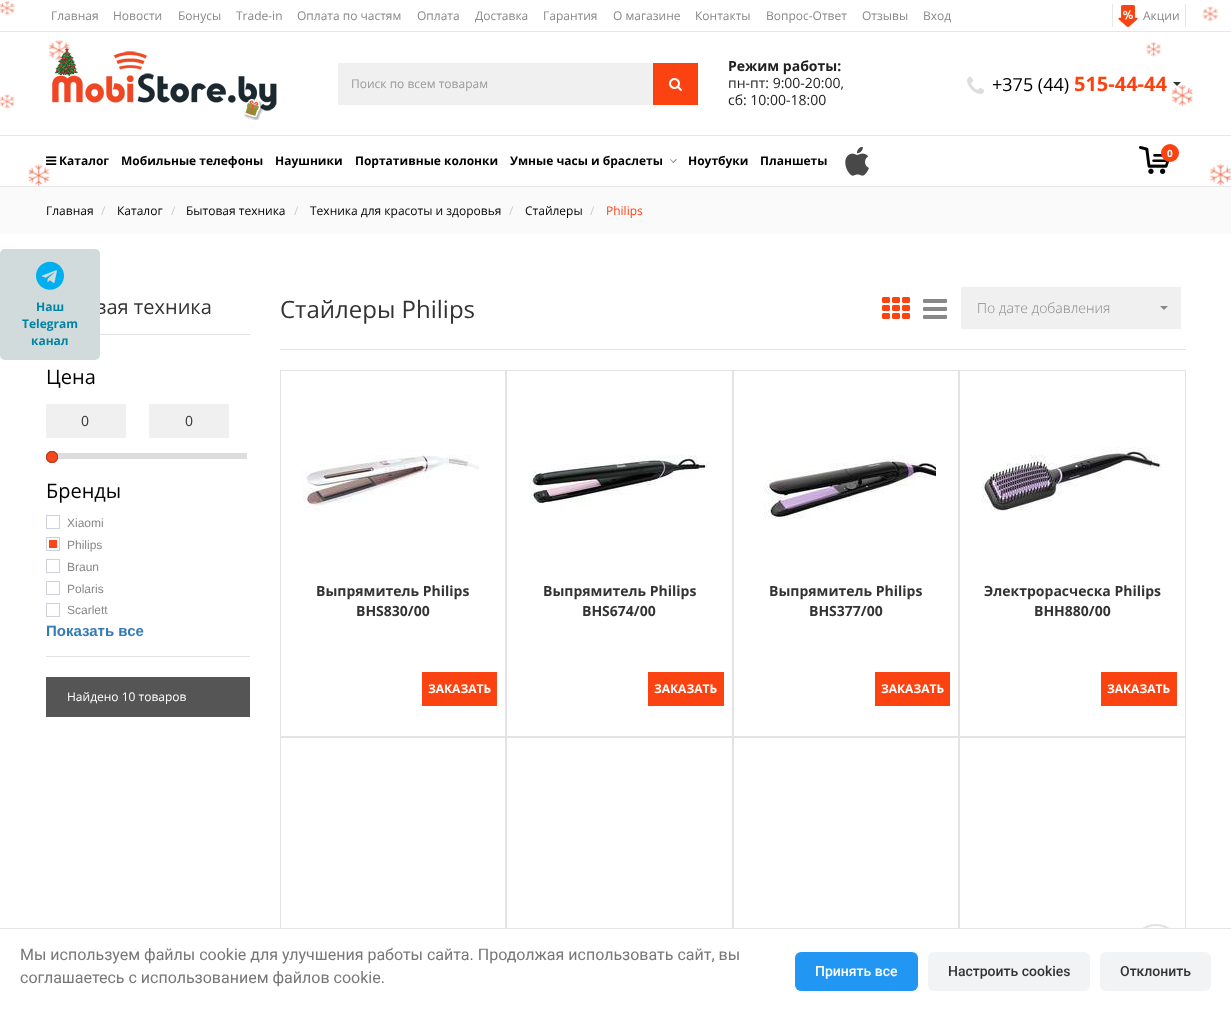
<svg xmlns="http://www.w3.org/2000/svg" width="1231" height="1014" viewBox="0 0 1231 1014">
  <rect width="100%" height="100%" fill="#ffffff"/>
  <image x="0" y="1" width="1231" height="185" href="img1.png"/>
  <rect x="0" y="31" width="1231" height="1" fill="#e7e7e7"/>
  <text x="51" y="20" font-family="Open Sans" font-size="12" fill="#888888">Главная</text>
  <text x="113" y="20" font-family="Open Sans" font-size="12" fill="#888888">Новости</text>
  <text x="178" y="20" font-family="Open Sans" font-size="12" fill="#888888">Бонусы</text>
  <text x="236" y="20" font-family="Open Sans" font-size="12" fill="#888888">Trade-in</text>
  <text x="297" y="20" font-family="Open Sans" font-size="12" fill="#888888">Оплата по частям</text>
  <text x="417" y="20" font-family="Open Sans" font-size="12" fill="#888888">Оплата</text>
  <text x="475" y="20" font-family="Open Sans" font-size="12" fill="#888888">Доставка</text>
  <text x="543" y="20" font-family="Open Sans" font-size="12" fill="#888888">Гарантия</text>
  <text x="613" y="20" font-family="Open Sans" font-size="12" fill="#888888">О магазине</text>
  <text x="695" y="20" font-family="Open Sans" font-size="12" fill="#888888">Контакты</text>
  <text x="766" y="20" font-family="Open Sans" font-size="12" fill="#888888">Вопрос-Ответ</text>
  <text x="862" y="20" font-family="Open Sans" font-size="12" fill="#888888">Отзывы</text>
  <text x="923" y="20" font-family="Open Sans" font-size="12" fill="#888888">Вход</text>
  <rect x="1185" y="4" width="1" height="23" fill="#e7e7e7"/>
  <rect x="1112" y="4" width="1" height="23" fill="#e7e7e7"/>
  <image x="1118" y="5" width="20" height="22" href="img2.png"/>
  <text x="1143" y="20" font-family="Open Sans" font-size="12" fill="#888888">Акции</text>
  <image x="52" y="48" width="225" height="72" href="img3.png"/>
  <rect x="338" y="63" width="315" height="42" fill="#f0f0f0"/>
  <text x="351" y="88" font-family="Open Sans" font-size="12" fill="#999999">Поиск по всем товарам</text>
  <rect x="653" y="63" width="45" height="42" fill="#fb4311"/>
  <image x="669" y="78" width="13" height="13" href="img4.png"/>
  <text x="728" y="71" font-family="Open Sans" font-size="14" font-weight="bold" fill="#222222">Режим работы:</text>
  <text x="728" y="88" font-family="Open Sans" font-size="14" fill="#222222">пн-пт: 9:00-20:00,</text>
  <text x="728" y="105" font-family="Open Sans" font-size="14" fill="#222222">сб: 10:00-18:00</text>
  <image x="967" y="76" width="18" height="18" href="img5.png"/>
  <text x="992" y="91" font-family="Open Sans" font-size="18" fill="#000000">+375 (44)</text>
  <text x="1074" y="91" font-family="Open Sans" font-size="20" font-weight="bold" fill="#fb4311">515-44-44</text>
  <path d="M1173 82H1181L1177 86Z" fill="#333333"/>
  <rect x="0" y="135" width="1231" height="1" fill="#e7e7e7"/>
  <rect x="0" y="186" width="1231" height="1" fill="#e7e7e7"/>
  <image x="845" y="147" width="24" height="29" href="img6.png"/>
  <image x="1139" y="146" width="31" height="28" href="img7.png"/>
  <circle cx="1170" cy="153" r="9" fill="#fb4311"/>
  <text x="1167" y="157" font-family="Open Sans" font-size="10" font-weight="bold" fill="#ffffff">0</text>
  <image x="46" y="156" width="11" height="9" href="img8.png"/>
  <text x="59" y="165" font-family="Open Sans" font-size="12" font-weight="bold" fill="#000000">Каталог</text>
  <text x="121" y="165" font-family="Open Sans" font-size="12" font-weight="bold" fill="#000000">Мобильные телефоны</text>
  <text x="275" y="165" font-family="Open Sans" font-size="12" font-weight="bold" fill="#000000">Наушники</text>
  <text x="355" y="165" font-family="Open Sans" font-size="12" font-weight="bold" fill="#000000">Портативные колонки</text>
  <text x="510" y="165" font-family="Open Sans" font-size="12" font-weight="bold" fill="#000000">Умные часы и браслеты</text>
  <path d="M673.5 163L670 159.5L670.5 159L674 162.5Z" fill="#888686"/>
  <path d="M673.5 163L672.5 162.5L676 159L677 159.5Z" fill="#888686"/>
  <text x="688" y="165" font-family="Open Sans" font-size="12" font-weight="bold" fill="#000000">Ноутбуки</text>
  <text x="760" y="165" font-family="Open Sans" font-size="12" font-weight="bold" fill="#000000">Планшеты</text>
  <rect x="0" y="187" width="1231" height="47" fill="#fafafa"/>
  <text x="46" y="215" font-family="Open Sans" font-size="12" fill="#000000">Главная</text>
  <text x="101" y="215" font-family="Open Sans" font-size="12" fill="#cccccc">/</text>
  <text x="117" y="215" font-family="Open Sans" font-size="12" fill="#000000">Каталог</text>
  <text x="171" y="215" font-family="Open Sans" font-size="12" fill="#cccccc">/</text>
  <text x="186" y="215" font-family="Open Sans" font-size="12" fill="#000000">Бытовая техника</text>
  <text x="294" y="215" font-family="Open Sans" font-size="12" fill="#cccccc">/</text>
  <text x="310" y="215" font-family="Open Sans" font-size="12" fill="#000000">Техника для красоты и здоровья</text>
  <text x="509" y="215" font-family="Open Sans" font-size="12" fill="#cccccc">/</text>
  <text x="525" y="215" font-family="Open Sans" font-size="12" fill="#000000">Стайлеры</text>
  <text x="590" y="215" font-family="Open Sans" font-size="12" fill="#cccccc">/</text>
  <text x="606" y="215" font-family="Open Sans" font-size="12" fill="#fb4311">Philips</text>
  <text x="95" y="314" font-family="Open Sans" font-size="20" fill="#333333">вая техника</text>
  <rect x="100" y="334" width="150" height="1" fill="#e3e3e3"/>
  <text x="46" y="384" font-family="Open Sans" font-size="20" fill="#000000">Цена</text>
  <rect x="46" y="404" width="80" height="34" fill="#f0f0f0"/>
  <text x="81" y="426" font-family="Open Sans" font-size="14" fill="#333333">0</text>
  <rect x="149" y="404" width="80" height="34" fill="#f0f0f0"/>
  <text x="185" y="426" font-family="Open Sans" font-size="14" fill="#333333">0</text>
  <rect x="49" y="453" width="198" height="6" fill="#dddddd"/>
  <image x="46" y="451" width="12" height="12" href="img9.png"/>
  <image x="46" y="451" width="12" height="12" href="img10.png"/>
  <text x="46" y="498" font-family="Open Sans" font-size="20" fill="#000000">Бренды</text>
  <rect x="46.5" y="515.5" width="13" height="13" fill="none" stroke="#cdd1da"/>
  <text x="67" y="527" font-family="Liberation Sans" font-size="12" fill="#888888">Xiaomi</text>
  <rect x="46.5" y="537.5" width="13" height="13" fill="none" stroke="#cdd1da"/>
  <rect x="49" y="540" width="8" height="8" fill="#f9461c"/>
  <text x="67" y="549" font-family="Liberation Sans" font-size="12" fill="#888888">Philips</text>
  <rect x="46.5" y="559.5" width="13" height="13" fill="none" stroke="#cdd1da"/>
  <text x="67" y="571" font-family="Liberation Sans" font-size="12" fill="#888888">Braun</text>
  <rect x="46.5" y="581.5" width="13" height="13" fill="none" stroke="#cdd1da"/>
  <text x="67" y="593" font-family="Liberation Sans" font-size="12" fill="#888888">Polaris</text>
  <rect x="46.5" y="603.5" width="13" height="13" fill="none" stroke="#cdd1da"/>
  <text x="67" y="614" font-family="Liberation Sans" font-size="12" fill="#888888">Scarlett</text>
  <text x="46" y="636" font-family="Liberation Sans" font-size="15" font-weight="bold" fill="#337ab7">Показать все</text>
  <rect x="46" y="656" width="204" height="1" fill="#e3e3e3"/>
  <rect x="46" y="677" width="204" height="40" fill="#555555"/>
  <text x="67" y="701" font-family="Open Sans" font-size="12" fill="#ffffff">Найдено 10 товаров</text>
  <text x="280" y="318" font-family="Open Sans" font-size="24" fill="#333333">Стайлеры Philips</text>
  <image x="882" y="297" width="28" height="22" href="img11.png"/>
  <image x="923" y="299" width="24" height="20" href="img12.png"/>
  <rect x="961" y="287" width="220" height="42" fill="#f0f0f0"/>
  <text x="977" y="313" font-family="Open Sans" font-size="14" font-weight="300" fill="#888888">По дате добавления</text>
  <path d="M1160 306H1168L1164 310Z" fill="#888888"/>
  <rect x="280" y="349" width="906" height="1" fill="#e3e3e3"/>
  <rect x="280.5" y="370.5" width="225" height="366" fill="none" stroke="#e3e3e3"/>
  <image x="303" y="455" width="176" height="56" href="img13.png"/>
  <text x="316" y="596" font-family="Open Sans" font-size="14" font-weight="bold" fill="#333333">Выпрямитель Philips</text>
  <text x="356" y="616" font-family="Open Sans" font-size="14" font-weight="bold" fill="#333333">BHS830/00</text>
  <rect x="422" y="672" width="75" height="34" fill="#fb4311"/>
  <text x="428" y="693" font-family="Open Sans" font-size="12" font-weight="bold" fill="#ffffff">ЗАКАЗАТЬ</text>
  <rect x="506.5" y="370.5" width="226" height="366" fill="none" stroke="#e3e3e3"/>
  <image x="529" y="455" width="180" height="48" href="img14.png"/>
  <text x="543" y="596" font-family="Open Sans" font-size="14" font-weight="bold" fill="#333333">Выпрямитель Philips</text>
  <text x="582" y="616" font-family="Open Sans" font-size="14" font-weight="bold" fill="#333333">BHS674/00</text>
  <rect x="648" y="672" width="76" height="34" fill="#fb4311"/>
  <text x="654" y="693" font-family="Open Sans" font-size="12" font-weight="bold" fill="#ffffff">ЗАКАЗАТЬ</text>
  <rect x="733.5" y="370.5" width="225" height="366" fill="none" stroke="#e3e3e3"/>
  <image x="764" y="455" width="172" height="64" href="img15.png"/>
  <text x="769" y="596" font-family="Open Sans" font-size="14" font-weight="bold" fill="#333333">Выпрямитель Philips</text>
  <text x="809" y="616" font-family="Open Sans" font-size="14" font-weight="bold" fill="#333333">BHS377/00</text>
  <rect x="875" y="672" width="75" height="34" fill="#fb4311"/>
  <text x="881" y="693" font-family="Open Sans" font-size="12" font-weight="bold" fill="#ffffff">ЗАКАЗАТЬ</text>
  <rect x="959.5" y="370.5" width="226" height="366" fill="none" stroke="#e3e3e3"/>
  <image x="982" y="447" width="180" height="64" href="img16.png"/>
  <text x="984" y="596" font-family="Open Sans" font-size="14" font-weight="bold" fill="#333333">Электрорасческа Philips</text>
  <text x="1034" y="616" font-family="Open Sans" font-size="14" font-weight="bold" fill="#333333">BHH880/00</text>
  <rect x="1101" y="672" width="76" height="34" fill="#fb4311"/>
  <text x="1107" y="693" font-family="Open Sans" font-size="12" font-weight="bold" fill="#ffffff">ЗАКАЗАТЬ</text>
  <rect x="280.5" y="737.5" width="225" height="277" fill="none" stroke="#e3e3e3"/>
  <rect x="506.5" y="737.5" width="226" height="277" fill="none" stroke="#e3e3e3"/>
  <rect x="733.5" y="737.5" width="225" height="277" fill="none" stroke="#e3e3e3"/>
  <rect x="959.5" y="737.5" width="226" height="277" fill="none" stroke="#e3e3e3"/>
  <rect x="0" y="249" width="100" height="111" rx="5" fill="#d1dbdb"/>
  <image x="36" y="261" width="28" height="29" href="img17.png"/>
  <text x="36" y="311" font-family="Open Sans" font-size="12" font-weight="bold" fill="#0084a4">Наш</text>
  <text x="22" y="328" font-family="Open Sans" font-size="12" font-weight="bold" fill="#0084a4">Telegram</text>
  <text x="31" y="345" font-family="Open Sans" font-size="12" font-weight="bold" fill="#0084a4">канал</text>
  <image x="1131" y="924" width="50" height="28" href="img18.png"/>
  <rect x="280" y="929" width="906" height="85" fill="#ffffff" fill-opacity="0.98"/>
  <rect x="0" y="928" width="1231" height="1" fill="#e5e5e5"/>
  <text x="20" y="960" font-family="Roboto" font-size="16" fill="#777777">Мы используем файлы cookie для улучшения работы сайта. Продолжая использовать сайт, вы</text>
  <text x="20" y="983" font-family="Roboto" font-size="16" fill="#777777">соглашаетесь с использованием файлов cookie.</text>
  <rect x="795" y="952" width="123" height="39" rx="6" fill="#2196f3"/>
  <text x="815" y="976" font-family="Roboto" font-size="14" font-weight="500" fill="#ffffff">Принять все</text>
  <rect x="928" y="952" width="162" height="39" rx="6" fill="#f1f3f5"/>
  <text x="948" y="976" font-family="Roboto" font-size="14" font-weight="500" fill="#333333">Настроить cookies</text>
  <rect x="1100" y="952" width="111" height="39" rx="6" fill="#f1f3f5"/>
  <text x="1120" y="976" font-family="Roboto" font-size="14" font-weight="500" fill="#333333">Отклонить</text>
</svg>
